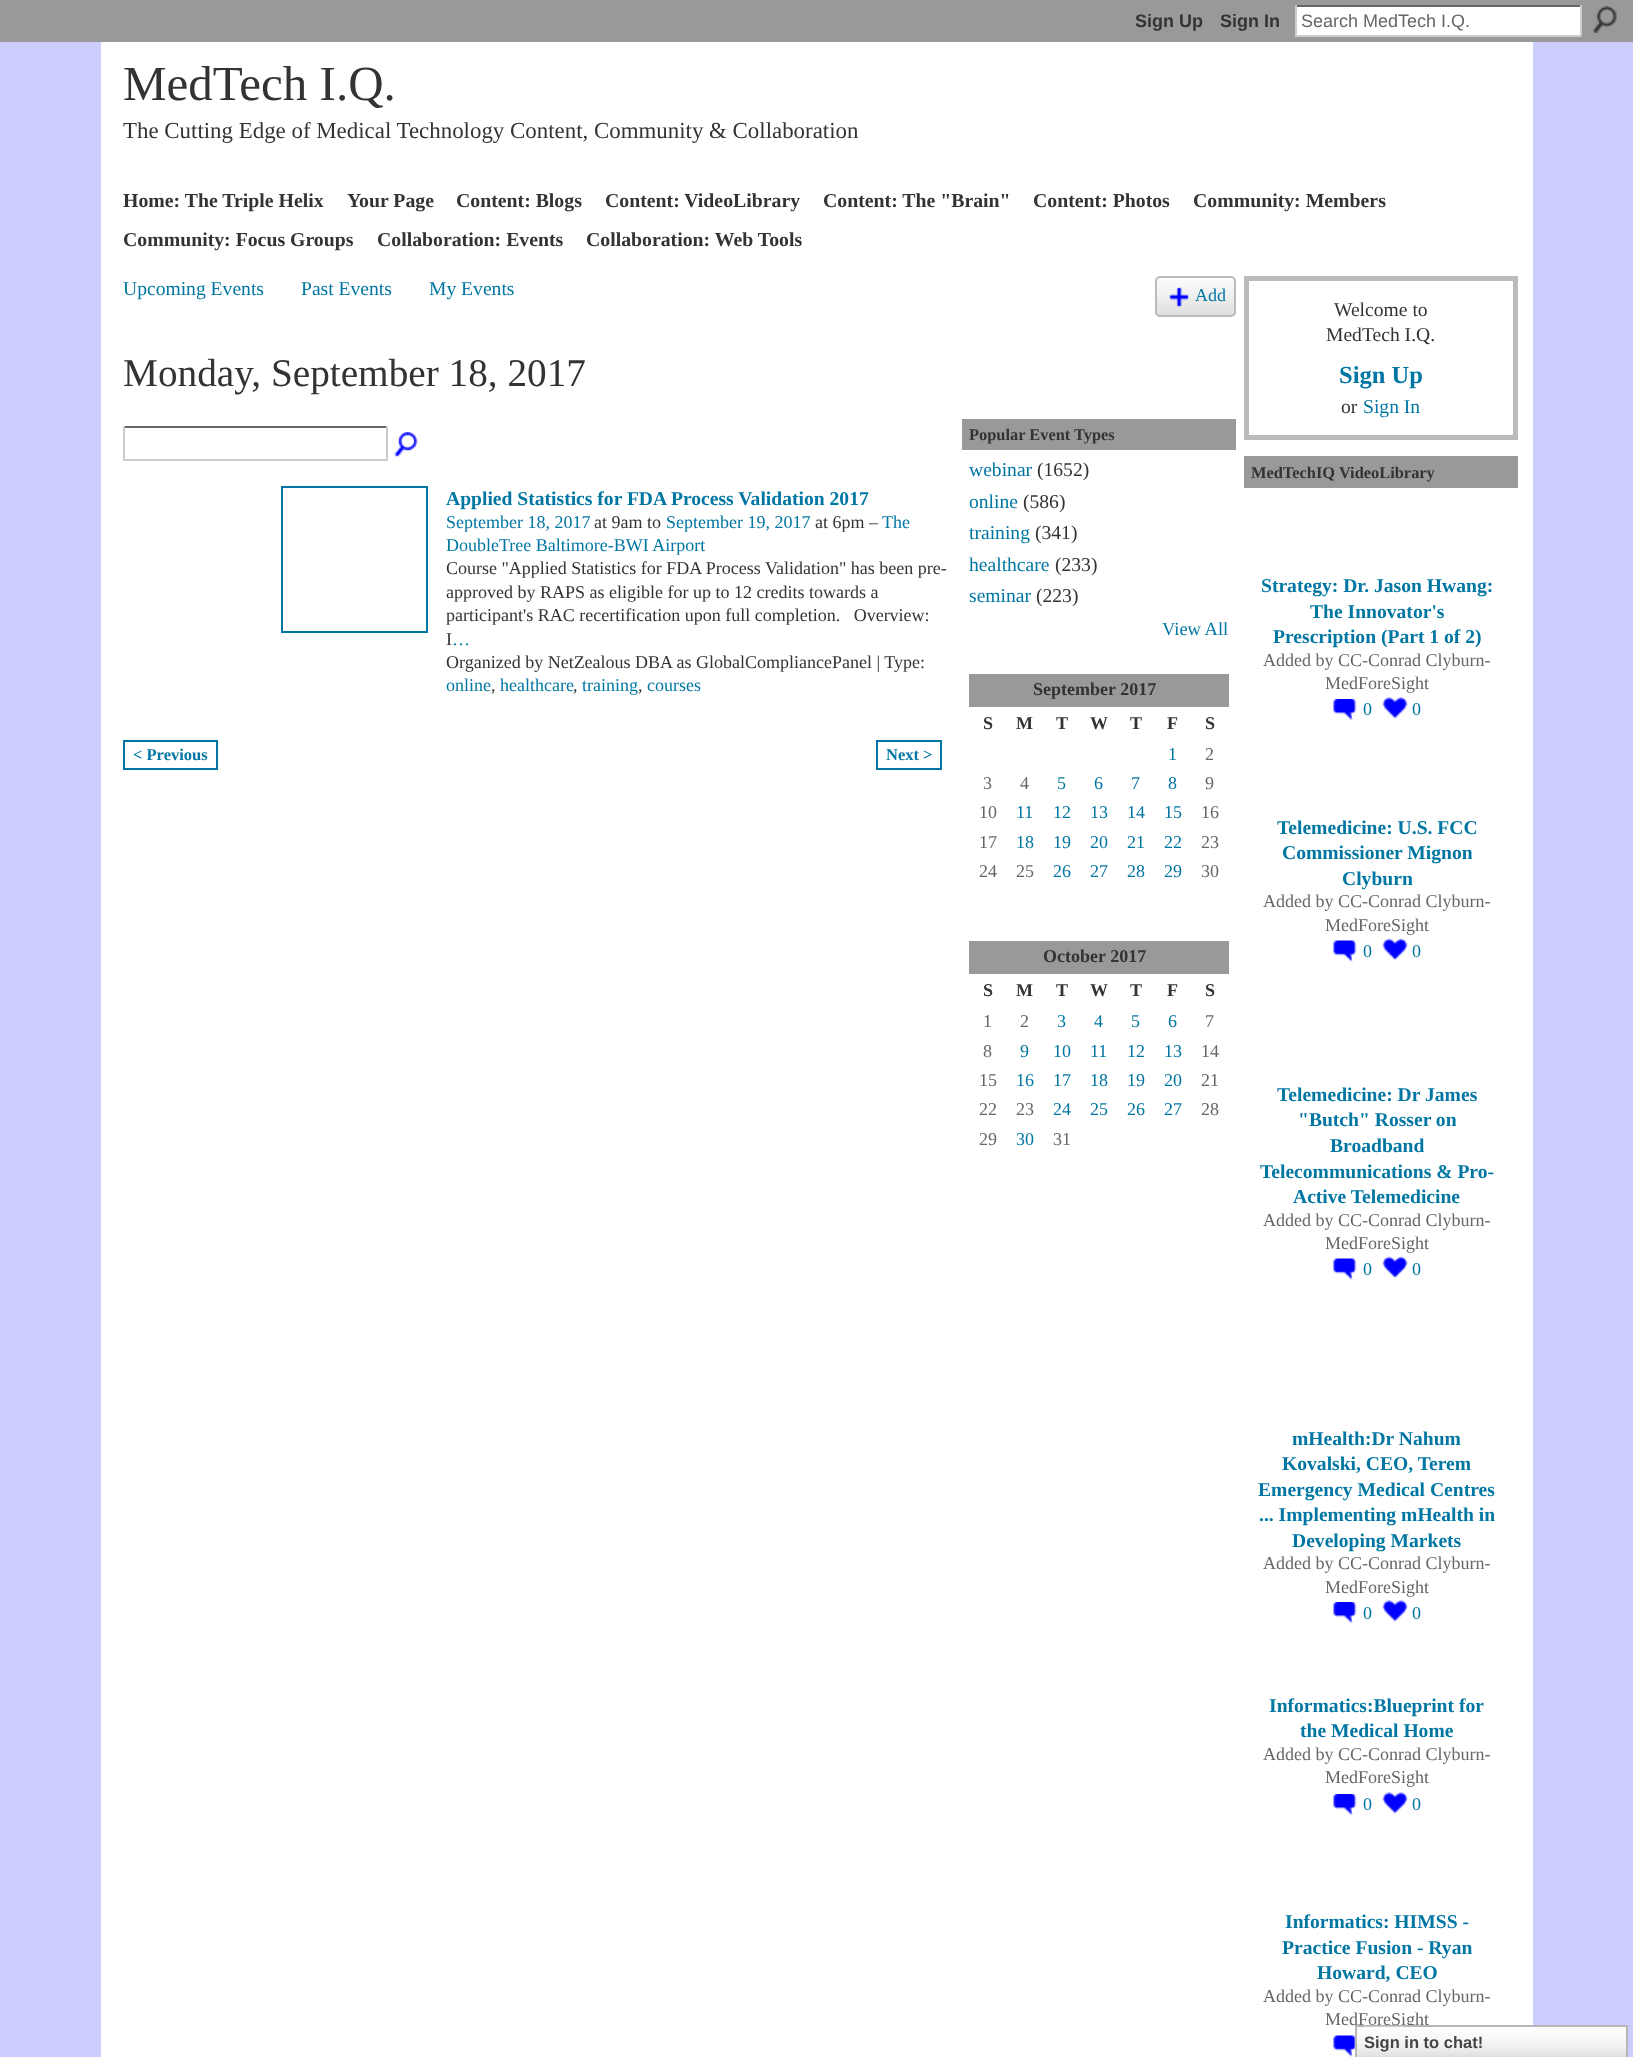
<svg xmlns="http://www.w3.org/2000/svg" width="1633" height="2057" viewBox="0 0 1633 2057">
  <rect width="100%" height="100%" fill="#ccccff"/>
  <rect x="0" y="0" width="1633" height="42" fill="#999999"/>
  <text x="1135" y="27" font-family="Liberation Sans" font-size="18" font-weight="bold" fill="#333333">Sign Up</text>
  <text x="1220" y="27" font-family="Liberation Sans" font-size="18" font-weight="bold" fill="#333333">Sign In</text>
  <rect x="1297" y="7" width="283" height="28" fill="#ffffff"/>
  <rect x="1295" y="5" width="286" height="2" fill="#666666"/>
  <rect x="1580" y="5" width="2" height="31" fill="#cccccc"/>
  <rect x="1295" y="35" width="286" height="2" fill="#cccccc"/>
  <rect x="1295" y="5" width="2" height="31" fill="#cccccc"/>
  <text x="1301" y="27" font-family="Liberation Sans" font-size="18" fill="#666666">Search MedTech I.Q.</text>
  <image x="1593" y="6" width="24" height="27" href="img1.png"/>
  <rect x="101" y="42" width="1432" height="2015" fill="#ffffff"/>
  <text x="123" y="100" font-family="Liberation Serif" font-size="49" fill="#333333">MedTech I.Q.</text>
  <text x="123" y="138" font-family="Liberation Serif" font-size="22.9" fill="#333333">The Cutting Edge of Medical Technology Content, Community &amp; Collaboration</text>
  <text x="123" y="207" font-family="Liberation Serif" font-size="19.8" font-weight="bold" fill="#333333">Home: The Triple Helix</text>
  <text x="347" y="207" font-family="Liberation Serif" font-size="19.8" font-weight="bold" fill="#333333">Your Page</text>
  <text x="456" y="207" font-family="Liberation Serif" font-size="19.8" font-weight="bold" fill="#333333">Content: Blogs</text>
  <text x="605" y="207" font-family="Liberation Serif" font-size="19.8" font-weight="bold" fill="#333333">Content: VideoLibrary</text>
  <text x="823" y="207" font-family="Liberation Serif" font-size="19.8" font-weight="bold" fill="#333333">Content: The "Brain"</text>
  <text x="1033" y="207" font-family="Liberation Serif" font-size="19.8" font-weight="bold" fill="#333333">Content: Photos</text>
  <text x="1193" y="207" font-family="Liberation Serif" font-size="19.8" font-weight="bold" fill="#333333">Community: Members</text>
  <text x="123" y="246" font-family="Liberation Serif" font-size="19.8" font-weight="bold" fill="#333333">Community: Focus Groups</text>
  <text x="377" y="246" font-family="Liberation Serif" font-size="19.8" font-weight="bold" fill="#333333">Collaboration: Events</text>
  <text x="586" y="246" font-family="Liberation Serif" font-size="19.8" font-weight="bold" fill="#333333">Collaboration: Web Tools</text>
  <text x="123" y="295" font-family="Liberation Serif" font-size="19.6" fill="#0076a3">Upcoming Events</text>
  <text x="301" y="295" font-family="Liberation Serif" font-size="19.6" fill="#0076a3">Past Events</text>
  <text x="429" y="295" font-family="Liberation Serif" font-size="19.6" fill="#0076a3">My Events</text>
  <image x="1155" y="279" width="81" height="38" href="img2.png"/>
  <rect x="1156" y="277" width="79" height="39" rx="4" fill="none" stroke="#bbbbbb" stroke-width="2"/>
  <image x="1169" y="287" width="20" height="20" href="img3.png"/>
  <text x="1195" y="301" font-family="Liberation Serif" font-size="18" fill="#0076a3">Add</text>
  <text x="123" y="386" font-family="Liberation Serif" font-size="39.25" fill="#333333">Monday, September 18, 2017</text>
  <rect x="123" y="426" width="264" height="2" fill="#666666"/>
  <rect x="386" y="426" width="2" height="35" fill="#cccccc"/>
  <rect x="123" y="459" width="264" height="2" fill="#cccccc"/>
  <rect x="123" y="426" width="2" height="35" fill="#cccccc"/>
  <image x="394" y="432" width="24" height="25" href="img4.png"/>
  <rect x="282" y="487" width="145" height="145" fill="none" stroke="#0076a3" stroke-width="2"/>
  <text x="446" y="505" font-family="Liberation Serif" font-size="19.6" font-weight="bold" fill="#0076a3">Applied Statistics for FDA Process Validation 2017</text>
  <text x="446" y="528" font-family="Liberation Serif" font-size="18" fill="#0076a3">September 18, 2017</text>
  <text x="594" y="528" font-family="Liberation Serif" font-size="18" fill="#333333">at 9am to</text>
  <text x="666" y="528" font-family="Liberation Serif" font-size="18" fill="#0076a3">September 19, 2017</text>
  <text x="815" y="528" font-family="Liberation Serif" font-size="18" fill="#333333">at 6pm –</text>
  <text x="882" y="528" font-family="Liberation Serif" font-size="18" fill="#0076a3">The</text>
  <text x="446" y="551" font-family="Liberation Serif" font-size="18" fill="#0076a3">DoubleTree Baltimore-BWI Airport</text>
  <text x="446" y="574" font-family="Liberation Serif" font-size="18" fill="#333333">Course "Applied Statistics for FDA Process Validation" has been pre-</text>
  <text x="446" y="598" font-family="Liberation Serif" font-size="18" fill="#333333">approved by RAPS as eligible for up to 12 credits towards a</text>
  <text x="446" y="621" font-family="Liberation Serif" font-size="18" fill="#333333" xml:space="preserve">participant's RAC recertification upon full completion.   Overview:</text>
  <text x="446" y="645" font-family="Liberation Serif" font-size="18" fill="#333333">I</text>
  <text x="452" y="645" font-family="Liberation Serif" font-size="18" fill="#0076a3">…</text>
  <text x="446" y="668" font-family="Liberation Serif" font-size="18" fill="#333333">Organized by NetZealous DBA as GlobalCompliancePanel | Type:</text>
  <text x="446" y="691" font-family="Liberation Serif" font-size="18" fill="#0076a3">online</text>
  <text x="491" y="691" font-family="Liberation Serif" font-size="18" fill="#333333">,</text>
  <text x="500" y="691" font-family="Liberation Serif" font-size="18" fill="#0076a3">healthcare</text>
  <text x="573" y="691" font-family="Liberation Serif" font-size="18" fill="#333333">,</text>
  <text x="582" y="691" font-family="Liberation Serif" font-size="18" fill="#0076a3">training</text>
  <text x="638" y="691" font-family="Liberation Serif" font-size="18" fill="#333333">,</text>
  <text x="647" y="691" font-family="Liberation Serif" font-size="18" fill="#0076a3">courses</text>
  <rect x="124" y="741" width="93" height="28" fill="none" stroke="#0076a3" stroke-width="2"/>
  <text x="133" y="760" font-family="Liberation Serif" font-size="16.5" font-weight="bold" fill="#0076a3">&lt; Previous</text>
  <rect x="877" y="741" width="64" height="28" fill="none" stroke="#0076a3" stroke-width="2"/>
  <text x="886" y="760" font-family="Liberation Serif" font-size="16.5" font-weight="bold" fill="#0076a3">Next &gt;</text>
  <rect x="962" y="419" width="274" height="31" fill="#999999"/>
  <text x="969" y="440" font-family="Liberation Serif" font-size="16.4" font-weight="bold" fill="#333333">Popular Event Types</text>
  <text x="969" y="476" font-family="Liberation Serif" font-size="19.6" fill="#0076a3">webinar</text>
  <text x="1037" y="476" font-family="Liberation Serif" font-size="19.6" fill="#333333">(1652)</text>
  <text x="969" y="508" font-family="Liberation Serif" font-size="19.6" fill="#0076a3">online</text>
  <text x="1023" y="508" font-family="Liberation Serif" font-size="19.6" fill="#333333">(586)</text>
  <text x="969" y="539" font-family="Liberation Serif" font-size="19.6" fill="#0076a3">training</text>
  <text x="1035" y="539" font-family="Liberation Serif" font-size="19.6" fill="#333333">(341)</text>
  <text x="969" y="571" font-family="Liberation Serif" font-size="19.6" fill="#0076a3">healthcare</text>
  <text x="1055" y="571" font-family="Liberation Serif" font-size="19.6" fill="#333333">(233)</text>
  <text x="969" y="602" font-family="Liberation Serif" font-size="19.6" fill="#0076a3">seminar</text>
  <text x="1036" y="602" font-family="Liberation Serif" font-size="19.6" fill="#333333">(223)</text>
  <text x="1162" y="635" font-family="Liberation Serif" font-size="18.5" fill="#0076a3">View All</text>
  <rect x="969" y="674" width="260" height="33" fill="#999999"/>
  <text x="1033" y="695" font-family="Liberation Serif" font-size="18" font-weight="bold" fill="#333333">September 2017</text>
  <text x="983" y="729" font-family="Liberation Serif" font-size="18" font-weight="bold" fill="#333333">S</text>
  <text x="1016" y="729" font-family="Liberation Serif" font-size="18" font-weight="bold" fill="#333333">M</text>
  <text x="1056" y="729" font-family="Liberation Serif" font-size="18" font-weight="bold" fill="#333333">T</text>
  <text x="1090" y="729" font-family="Liberation Serif" font-size="18" font-weight="bold" fill="#333333">W</text>
  <text x="1130" y="729" font-family="Liberation Serif" font-size="18" font-weight="bold" fill="#333333">T</text>
  <text x="1167" y="729" font-family="Liberation Serif" font-size="18" font-weight="bold" fill="#333333">F</text>
  <text x="1205" y="729" font-family="Liberation Serif" font-size="18" font-weight="bold" fill="#333333">S</text>
  <text x="1168" y="760" font-family="Liberation Serif" font-size="18" fill="#0076a3">1</text>
  <text x="1205" y="760" font-family="Liberation Serif" font-size="18" fill="#666666">2</text>
  <text x="983" y="789" font-family="Liberation Serif" font-size="18" fill="#666666">3</text>
  <text x="1020" y="789" font-family="Liberation Serif" font-size="18" fill="#666666">4</text>
  <text x="1057" y="789" font-family="Liberation Serif" font-size="18" fill="#0076a3">5</text>
  <text x="1094" y="789" font-family="Liberation Serif" font-size="18" fill="#0076a3">6</text>
  <text x="1131" y="789" font-family="Liberation Serif" font-size="18" fill="#0076a3">7</text>
  <text x="1168" y="789" font-family="Liberation Serif" font-size="18" fill="#0076a3">8</text>
  <text x="1205" y="789" font-family="Liberation Serif" font-size="18" fill="#666666">9</text>
  <text x="979" y="818" font-family="Liberation Serif" font-size="18" fill="#666666">10</text>
  <text x="1016" y="818" font-family="Liberation Serif" font-size="18" fill="#0076a3">11</text>
  <text x="1053" y="818" font-family="Liberation Serif" font-size="18" fill="#0076a3">12</text>
  <text x="1090" y="818" font-family="Liberation Serif" font-size="18" fill="#0076a3">13</text>
  <text x="1127" y="818" font-family="Liberation Serif" font-size="18" fill="#0076a3">14</text>
  <text x="1164" y="818" font-family="Liberation Serif" font-size="18" fill="#0076a3">15</text>
  <text x="1201" y="818" font-family="Liberation Serif" font-size="18" fill="#666666">16</text>
  <text x="979" y="848" font-family="Liberation Serif" font-size="18" fill="#666666">17</text>
  <text x="1016" y="848" font-family="Liberation Serif" font-size="18" fill="#0076a3">18</text>
  <text x="1053" y="848" font-family="Liberation Serif" font-size="18" fill="#0076a3">19</text>
  <text x="1090" y="848" font-family="Liberation Serif" font-size="18" fill="#0076a3">20</text>
  <text x="1127" y="848" font-family="Liberation Serif" font-size="18" fill="#0076a3">21</text>
  <text x="1164" y="848" font-family="Liberation Serif" font-size="18" fill="#0076a3">22</text>
  <text x="1201" y="848" font-family="Liberation Serif" font-size="18" fill="#666666">23</text>
  <text x="979" y="877" font-family="Liberation Serif" font-size="18" fill="#666666">24</text>
  <text x="1016" y="877" font-family="Liberation Serif" font-size="18" fill="#666666">25</text>
  <text x="1053" y="877" font-family="Liberation Serif" font-size="18" fill="#0076a3">26</text>
  <text x="1090" y="877" font-family="Liberation Serif" font-size="18" fill="#0076a3">27</text>
  <text x="1127" y="877" font-family="Liberation Serif" font-size="18" fill="#0076a3">28</text>
  <text x="1164" y="877" font-family="Liberation Serif" font-size="18" fill="#0076a3">29</text>
  <text x="1201" y="877" font-family="Liberation Serif" font-size="18" fill="#666666">30</text>
  <rect x="969" y="941" width="260" height="33" fill="#999999"/>
  <text x="1043" y="962" font-family="Liberation Serif" font-size="18" font-weight="bold" fill="#333333">October 2017</text>
  <text x="983" y="996" font-family="Liberation Serif" font-size="18" font-weight="bold" fill="#333333">S</text>
  <text x="1016" y="996" font-family="Liberation Serif" font-size="18" font-weight="bold" fill="#333333">M</text>
  <text x="1056" y="996" font-family="Liberation Serif" font-size="18" font-weight="bold" fill="#333333">T</text>
  <text x="1090" y="996" font-family="Liberation Serif" font-size="18" font-weight="bold" fill="#333333">W</text>
  <text x="1130" y="996" font-family="Liberation Serif" font-size="18" font-weight="bold" fill="#333333">T</text>
  <text x="1167" y="996" font-family="Liberation Serif" font-size="18" font-weight="bold" fill="#333333">F</text>
  <text x="1205" y="996" font-family="Liberation Serif" font-size="18" font-weight="bold" fill="#333333">S</text>
  <text x="983" y="1027" font-family="Liberation Serif" font-size="18" fill="#666666">1</text>
  <text x="1020" y="1027" font-family="Liberation Serif" font-size="18" fill="#666666">2</text>
  <text x="1057" y="1027" font-family="Liberation Serif" font-size="18" fill="#0076a3">3</text>
  <text x="1094" y="1027" font-family="Liberation Serif" font-size="18" fill="#0076a3">4</text>
  <text x="1131" y="1027" font-family="Liberation Serif" font-size="18" fill="#0076a3">5</text>
  <text x="1168" y="1027" font-family="Liberation Serif" font-size="18" fill="#0076a3">6</text>
  <text x="1205" y="1027" font-family="Liberation Serif" font-size="18" fill="#666666">7</text>
  <text x="983" y="1057" font-family="Liberation Serif" font-size="18" fill="#666666">8</text>
  <text x="1020" y="1057" font-family="Liberation Serif" font-size="18" fill="#0076a3">9</text>
  <text x="1053" y="1057" font-family="Liberation Serif" font-size="18" fill="#0076a3">10</text>
  <text x="1090" y="1057" font-family="Liberation Serif" font-size="18" fill="#0076a3">11</text>
  <text x="1127" y="1057" font-family="Liberation Serif" font-size="18" fill="#0076a3">12</text>
  <text x="1164" y="1057" font-family="Liberation Serif" font-size="18" fill="#0076a3">13</text>
  <text x="1201" y="1057" font-family="Liberation Serif" font-size="18" fill="#666666">14</text>
  <text x="979" y="1086" font-family="Liberation Serif" font-size="18" fill="#666666">15</text>
  <text x="1016" y="1086" font-family="Liberation Serif" font-size="18" fill="#0076a3">16</text>
  <text x="1053" y="1086" font-family="Liberation Serif" font-size="18" fill="#0076a3">17</text>
  <text x="1090" y="1086" font-family="Liberation Serif" font-size="18" fill="#0076a3">18</text>
  <text x="1127" y="1086" font-family="Liberation Serif" font-size="18" fill="#0076a3">19</text>
  <text x="1164" y="1086" font-family="Liberation Serif" font-size="18" fill="#0076a3">20</text>
  <text x="1201" y="1086" font-family="Liberation Serif" font-size="18" fill="#666666">21</text>
  <text x="979" y="1115" font-family="Liberation Serif" font-size="18" fill="#666666">22</text>
  <text x="1016" y="1115" font-family="Liberation Serif" font-size="18" fill="#666666">23</text>
  <text x="1053" y="1115" font-family="Liberation Serif" font-size="18" fill="#0076a3">24</text>
  <text x="1090" y="1115" font-family="Liberation Serif" font-size="18" fill="#0076a3">25</text>
  <text x="1127" y="1115" font-family="Liberation Serif" font-size="18" fill="#0076a3">26</text>
  <text x="1164" y="1115" font-family="Liberation Serif" font-size="18" fill="#0076a3">27</text>
  <text x="1201" y="1115" font-family="Liberation Serif" font-size="18" fill="#666666">28</text>
  <text x="979" y="1145" font-family="Liberation Serif" font-size="18" fill="#666666">29</text>
  <text x="1016" y="1145" font-family="Liberation Serif" font-size="18" fill="#0076a3">30</text>
  <text x="1053" y="1145" font-family="Liberation Serif" font-size="18" fill="#666666">31</text>
  <rect x="1246.5" y="278.5" width="269" height="159" fill="none" stroke="#bbbbbb" stroke-width="5"/>
  <text x="1334" y="316" font-family="Liberation Serif" font-size="19.6" fill="#333333">Welcome to</text>
  <text x="1326" y="341" font-family="Liberation Serif" font-size="19.6" fill="#333333">MedTech I.Q.</text>
  <text x="1339" y="383" font-family="Liberation Serif" font-size="24.5" font-weight="bold" fill="#0076a3">Sign Up</text>
  <text x="1341" y="413" font-family="Liberation Serif" font-size="19.6" fill="#333333">or</text>
  <text x="1363" y="413" font-family="Liberation Serif" font-size="19.6" fill="#0076a3">Sign In</text>
  <rect x="1244" y="456" width="274" height="32" fill="#999999"/>
  <text x="1251" y="478" font-family="Liberation Serif" font-size="16.4" font-weight="bold" fill="#333333">MedTechIQ VideoLibrary</text>
  <text x="1261" y="592" font-family="Liberation Serif" font-size="19.6" font-weight="bold" fill="#0076a3">Strategy: Dr. Jason Hwang:</text>
  <text x="1310" y="618" font-family="Liberation Serif" font-size="19.6" font-weight="bold" fill="#0076a3">The Innovator's</text>
  <text x="1273" y="643" font-family="Liberation Serif" font-size="19.6" font-weight="bold" fill="#0076a3">Prescription (Part 1 of 2)</text>
  <text x="1263" y="666" font-family="Liberation Serif" font-size="18" fill="#666666">Added by CC-Conrad Clyburn-</text>
  <text x="1325" y="689" font-family="Liberation Serif" font-size="18" fill="#666666">MedForeSight</text>
  <image x="1333" y="699" width="24" height="21" href="img5.png"/>
  <text x="1363" y="715" font-family="Liberation Serif" font-size="18" fill="#0076a3">0</text>
  <image x="1382" y="697" width="26" height="22" href="img6.png"/>
  <text x="1412" y="715" font-family="Liberation Serif" font-size="18" fill="#0076a3">0</text>
  <text x="1277" y="834" font-family="Liberation Serif" font-size="19.6" font-weight="bold" fill="#0076a3">Telemedicine: U.S. FCC</text>
  <text x="1282" y="859" font-family="Liberation Serif" font-size="19.6" font-weight="bold" fill="#0076a3">Commissioner Mignon</text>
  <text x="1342" y="885" font-family="Liberation Serif" font-size="19.6" font-weight="bold" fill="#0076a3">Clyburn</text>
  <text x="1263" y="907" font-family="Liberation Serif" font-size="18" fill="#666666">Added by CC-Conrad Clyburn-</text>
  <text x="1325" y="931" font-family="Liberation Serif" font-size="18" fill="#666666">MedForeSight</text>
  <image x="1333" y="940" width="24" height="22" href="img7.png"/>
  <text x="1363" y="957" font-family="Liberation Serif" font-size="18" fill="#0076a3">0</text>
  <image x="1382" y="938" width="26" height="23" href="img8.png"/>
  <text x="1412" y="957" font-family="Liberation Serif" font-size="18" fill="#0076a3">0</text>
  <text x="1277" y="1101" font-family="Liberation Serif" font-size="19.6" font-weight="bold" fill="#0076a3">Telemedicine: Dr James</text>
  <text x="1298" y="1126" font-family="Liberation Serif" font-size="19.6" font-weight="bold" fill="#0076a3">"Butch" Rosser on</text>
  <text x="1330" y="1152" font-family="Liberation Serif" font-size="19.6" font-weight="bold" fill="#0076a3">Broadband</text>
  <text x="1260" y="1178" font-family="Liberation Serif" font-size="19.6" font-weight="bold" fill="#0076a3">Telecommunications &amp; Pro-</text>
  <text x="1293" y="1203" font-family="Liberation Serif" font-size="19.6" font-weight="bold" fill="#0076a3">Active Telemedicine</text>
  <text x="1263" y="1226" font-family="Liberation Serif" font-size="18" fill="#666666">Added by CC-Conrad Clyburn-</text>
  <text x="1325" y="1249" font-family="Liberation Serif" font-size="18" fill="#666666">MedForeSight</text>
  <image x="1333" y="1258" width="24" height="22" href="img7.png"/>
  <text x="1363" y="1275" font-family="Liberation Serif" font-size="18" fill="#0076a3">0</text>
  <image x="1382" y="1256" width="26" height="23" href="img8.png"/>
  <text x="1412" y="1275" font-family="Liberation Serif" font-size="18" fill="#0076a3">0</text>
  <text x="1292" y="1445" font-family="Liberation Serif" font-size="19.6" font-weight="bold" fill="#0076a3">mHealth:Dr Nahum</text>
  <text x="1282" y="1470" font-family="Liberation Serif" font-size="19.6" font-weight="bold" fill="#0076a3">Kovalski, CEO, Terem</text>
  <text x="1258" y="1496" font-family="Liberation Serif" font-size="19.6" font-weight="bold" fill="#0076a3">Emergency Medical Centres</text>
  <text x="1259" y="1521" font-family="Liberation Serif" font-size="19.6" font-weight="bold" fill="#0076a3">... Implementing mHealth in</text>
  <text x="1292" y="1547" font-family="Liberation Serif" font-size="19.6" font-weight="bold" fill="#0076a3">Developing Markets</text>
  <text x="1263" y="1569" font-family="Liberation Serif" font-size="18" fill="#666666">Added by CC-Conrad Clyburn-</text>
  <text x="1325" y="1593" font-family="Liberation Serif" font-size="18" fill="#666666">MedForeSight</text>
  <image x="1333" y="1602" width="24" height="21" href="img5.png"/>
  <text x="1363" y="1619" font-family="Liberation Serif" font-size="18" fill="#0076a3">0</text>
  <image x="1382" y="1600" width="26" height="22" href="img6.png"/>
  <text x="1412" y="1619" font-family="Liberation Serif" font-size="18" fill="#0076a3">0</text>
  <text x="1269" y="1712" font-family="Liberation Serif" font-size="19.6" font-weight="bold" fill="#0076a3">Informatics:Blueprint for</text>
  <text x="1300" y="1737" font-family="Liberation Serif" font-size="19.6" font-weight="bold" fill="#0076a3">the Medical Home</text>
  <text x="1263" y="1760" font-family="Liberation Serif" font-size="18" fill="#666666">Added by CC-Conrad Clyburn-</text>
  <text x="1325" y="1783" font-family="Liberation Serif" font-size="18" fill="#666666">MedForeSight</text>
  <image x="1333" y="1794" width="24" height="21" href="img5.png"/>
  <text x="1363" y="1810" font-family="Liberation Serif" font-size="18" fill="#0076a3">0</text>
  <image x="1382" y="1792" width="26" height="22" href="img6.png"/>
  <text x="1412" y="1810" font-family="Liberation Serif" font-size="18" fill="#0076a3">0</text>
  <text x="1285" y="1928" font-family="Liberation Serif" font-size="19.6" font-weight="bold" fill="#0076a3">Informatics: HIMSS -</text>
  <text x="1282" y="1954" font-family="Liberation Serif" font-size="19.6" font-weight="bold" fill="#0076a3">Practice Fusion - Ryan</text>
  <text x="1317" y="1979" font-family="Liberation Serif" font-size="19.6" font-weight="bold" fill="#0076a3">Howard, CEO</text>
  <text x="1263" y="2002" font-family="Liberation Serif" font-size="18" fill="#666666">Added by CC-Conrad Clyburn-</text>
  <text x="1325" y="2025" font-family="Liberation Serif" font-size="18" fill="#666666">MedForeSight</text>
  <image x="1333" y="2035" width="22" height="22" href="img9.png"/>
  <image x="1357" y="2027" width="269" height="30" href="img10.png"/>
  <rect x="1356" y="2026" width="271" height="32" fill="none" stroke="#b7b7b7" stroke-width="2"/>
  <image x="1363" y="2026" width="41" height="1" href="img11.png"/>
  <text x="1364" y="2048" font-family="Liberation Sans" font-size="16.5" font-weight="bold" fill="#454545">Sign in to chat!</text>
</svg>
